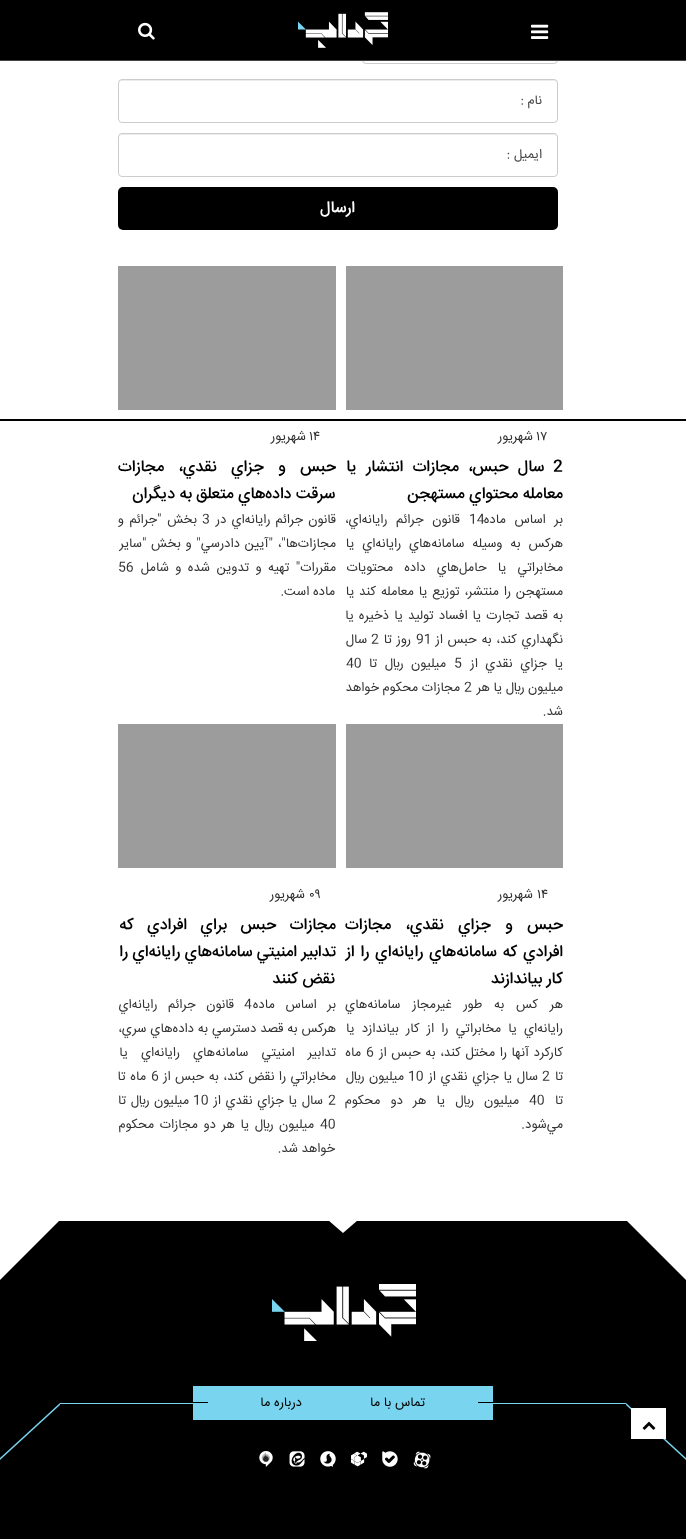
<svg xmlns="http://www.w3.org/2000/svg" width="686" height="1539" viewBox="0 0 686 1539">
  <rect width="100%" height="100%" fill="#ffffff"/>
  <rect x="362.5" y="30.5" width="195" height="33" rx="3.5" fill="none" stroke="#cccccc"/>
  <rect x="0" y="0" width="686" height="60" fill="#000000"/>
  <rect x="0" y="60" width="686" height="1" fill="#444444"/>
  <image x="531" y="24" width="18" height="15" href="img1.png"/>
  <image x="298" y="12" width="90" height="36" href="img2.png"/>
  <image x="138" y="22" width="17" height="18" href="img3.png"/>
  <path d="M122 81H554C556 81 557 82 557 84C557 82 556 80 554 80H121L119 82V84C119 82 120 81 122 81Z" fill="#ececec"/>
  <rect x="118.5" y="79.5" width="439" height="43" rx="3.5" fill="none" stroke="#cccccc"/>
  <text x="542" y="104" font-family="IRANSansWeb" font-size="13" direction="rtl" fill="#434343">نام :</text>
  <path d="M122 135H554C556 135 557 136 557 138C557 136 556 134 554 134H121L119 136V138C119 136 120 135 122 135Z" fill="#ececec"/>
  <rect x="118.5" y="133.5" width="439" height="43" rx="3.5" fill="none" stroke="#cccccc"/>
  <text x="542" y="158" font-family="IRANSansWeb" font-size="13" direction="rtl" fill="#434343">ایمیل :</text>
  <rect x="118" y="187" width="440" height="43" rx="5" fill="#000000"/>
  <text x="355" y="212" font-family="IRANSansWeb" font-size="16" font-weight="500" direction="rtl" fill="#ffffff">ارسال</text>
  <rect x="0" y="419" width="686" height="2" fill="#000000"/>
  <rect x="346" y="266" width="217" height="144" fill="#9c9c9c"/>
  <text x="536" y="440" font-family="IRANSansWeb" font-size="13" fill="#2d2d2d">۱۷</text>
  <text x="533" y="440" font-family="IRANSansWeb" font-size="13" direction="rtl" fill="#2d2d2d">شهريور</text>
  <text x="553" y="471" font-family="IRANSansWeb" font-size="16" font-weight="500" fill="#000000">2</text>
  <text x="544" y="471" word-spacing="5" font-family="IRANSansWeb" font-size="16" font-weight="500" direction="rtl" fill="#000000">سال حبس، مجازات انتشار يا</text>
  <text x="563" y="498" font-family="IRANSansWeb" font-size="16" font-weight="500" direction="rtl" fill="#000000">معامله محتواي مستهجن</text>
  <text x="563" y="523" word-spacing="5" font-family="IRANSansWeb" font-size="13" direction="rtl" fill="#333333">بر اساس ماده</text>
  <text x="469" y="523" font-family="IRANSansWeb" font-size="13" fill="#333333">14</text>
  <text x="460" y="523" word-spacing="5" font-family="IRANSansWeb" font-size="13" direction="rtl" fill="#333333">قانون جرائم رايانه‌اي،</text>
  <text x="563" y="547" word-spacing="4.25" font-family="IRANSansWeb" font-size="13" direction="rtl" fill="#333333">هركس به وسيله سامانه‌هاي رايانه‌اي يا</text>
  <text x="563" y="571" word-spacing="7.5" font-family="IRANSansWeb" font-size="13" direction="rtl" fill="#333333">مخابراتي يا حامل‌هاي داده محتويات</text>
  <text x="563" y="595" word-spacing="1.25" font-family="IRANSansWeb" font-size="13" direction="rtl" fill="#333333">مستهجن را منتشر، توزيع يا معامله كند يا</text>
  <text x="563" y="619" word-spacing="1.5" font-family="IRANSansWeb" font-size="13" direction="rtl" fill="#333333">به قصد تجارت يا افساد توليد يا ذخيره يا</text>
  <text x="563" y="643" word-spacing="1" font-family="IRANSansWeb" font-size="13" direction="rtl" fill="#333333">نگهداري كند، به حبس از</text>
  <text x="416" y="643" font-family="IRANSansWeb" font-size="13" fill="#333333">91</text>
  <text x="411" y="643" word-spacing="1" font-family="IRANSansWeb" font-size="13" direction="rtl" fill="#333333">روز تا</text>
  <text x="371" y="643" font-family="IRANSansWeb" font-size="13" fill="#333333">2</text>
  <text x="367" y="643" font-family="IRANSansWeb" font-size="13" direction="rtl" fill="#333333">سال</text>
  <text x="563" y="667" word-spacing="4" font-family="IRANSansWeb" font-size="13" direction="rtl" fill="#333333">يا جزاي نقدي از</text>
  <text x="454" y="667" font-family="IRANSansWeb" font-size="13" fill="#333333">5</text>
  <text x="446" y="667" word-spacing="4" font-family="IRANSansWeb" font-size="13" direction="rtl" fill="#333333">ميليون ريال تا</text>
  <text x="346" y="667" font-family="IRANSansWeb" font-size="13" fill="#333333">40</text>
  <text x="563" y="691" font-family="IRANSansWeb" font-size="13" direction="rtl" fill="#333333">ميليون ريال يا هر</text>
  <text x="464" y="691" font-family="IRANSansWeb" font-size="13" fill="#333333">2</text>
  <text x="460" y="691" font-family="IRANSansWeb" font-size="13" direction="rtl" fill="#333333">مجازات محكوم خواهد</text>
  <text x="563" y="715" font-family="IRANSansWeb" font-size="13" direction="rtl" fill="#333333">شد.</text>
  <rect x="118" y="266" width="218" height="144" fill="#9c9c9c"/>
  <text x="309" y="440" font-family="IRANSansWeb" font-size="13" fill="#2d2d2d">۱۴</text>
  <text x="306" y="440" font-family="IRANSansWeb" font-size="13" direction="rtl" fill="#2d2d2d">شهريور</text>
  <text x="336" y="471" word-spacing="10" font-family="IRANSansWeb" font-size="16" font-weight="500" direction="rtl" fill="#000000">حبس و جزاي نقدي، مجازات</text>
  <text x="335" y="498" font-family="IRANSansWeb" font-size="16" font-weight="500" direction="rtl" fill="#000000">سرقت داده‌هاي متعلق به ديگران</text>
  <text x="336" y="523" word-spacing="1.5" font-family="IRANSansWeb" font-size="13" direction="rtl" fill="#333333">قانون جرائم رايانه‌اي در</text>
  <text x="202" y="523" font-family="IRANSansWeb" font-size="13" fill="#333333">3</text>
  <text x="197" y="523" word-spacing="2" font-family="IRANSansWeb" font-size="13" direction="rtl" fill="#333333">بخش "جرائم و</text>
  <text x="336" y="547" word-spacing="1" font-family="IRANSansWeb" font-size="13" direction="rtl" fill="#333333">مجازات‌ها"، "آيين دادرسي" و بخش "ساير</text>
  <text x="336" y="571" word-spacing="2.75" font-family="IRANSansWeb" font-size="13" direction="rtl" fill="#333333">مقررات" تهيه و تدوين شده و شامل</text>
  <text x="118" y="571" font-family="IRANSansWeb" font-size="13" fill="#333333">56</text>
  <text x="335" y="595" font-family="IRANSansWeb" font-size="13" direction="rtl" fill="#333333">ماده است.</text>
  <rect x="346" y="724" width="217" height="144" fill="#9c9c9c"/>
  <text x="537" y="898" font-family="IRANSansWeb" font-size="13" fill="#2d2d2d">۱۴</text>
  <text x="533" y="898" font-family="IRANSansWeb" font-size="13" direction="rtl" fill="#2d2d2d">شهريور</text>
  <text x="563" y="929" word-spacing="10" font-family="IRANSansWeb" font-size="16" font-weight="500" direction="rtl" fill="#000000">حبس و جزاي نقدي، مجازات</text>
  <text x="563" y="956" word-spacing="1.5" font-family="IRANSansWeb" font-size="16" font-weight="500" direction="rtl" fill="#000000">افرادي كه سامانه‌هاي رايانه‌اي را از</text>
  <text x="563" y="983" font-family="IRANSansWeb" font-size="16" font-weight="500" direction="rtl" fill="#000000">كار بياندازند</text>
  <text x="563" y="1008" word-spacing="8" font-family="IRANSansWeb" font-size="13" direction="rtl" fill="#333333">هر كس به طور غيرمجاز سامانه‌هاي</text>
  <text x="563" y="1032" word-spacing="3.5" font-family="IRANSansWeb" font-size="13" direction="rtl" fill="#333333">رايانه‌اي يا مخابراتي را از كار بياندازد يا</text>
  <text x="563" y="1056" word-spacing="1" font-family="IRANSansWeb" font-size="13" direction="rtl" fill="#333333">كاركرد آنها را مختل كند، به حبس از</text>
  <text x="366" y="1056" font-family="IRANSansWeb" font-size="13" fill="#333333">6</text>
  <text x="361" y="1056" font-family="IRANSansWeb" font-size="13" direction="rtl" fill="#333333">ماه</text>
  <text x="563" y="1080" font-family="IRANSansWeb" font-size="13" direction="rtl" fill="#333333">تا</text>
  <text x="542" y="1080" font-family="IRANSansWeb" font-size="13" fill="#333333">2</text>
  <text x="538" y="1080" word-spacing="1" font-family="IRANSansWeb" font-size="13" direction="rtl" fill="#333333">سال يا جزاي نقدي از</text>
  <text x="408" y="1080" font-family="IRANSansWeb" font-size="13" fill="#333333">10</text>
  <text x="404" y="1080" word-spacing="1" font-family="IRANSansWeb" font-size="13" direction="rtl" fill="#333333">ميليون ريال</text>
  <text x="563" y="1104" font-family="IRANSansWeb" font-size="13" direction="rtl" fill="#333333">تا</text>
  <text x="529" y="1104" font-family="IRANSansWeb" font-size="13" fill="#333333">40</text>
  <text x="519" y="1104" word-spacing="6.5" font-family="IRANSansWeb" font-size="13" direction="rtl" fill="#333333">ميليون ريال يا هر دو محكوم</text>
  <text x="563" y="1128" font-family="IRANSansWeb" font-size="13" direction="rtl" fill="#333333">مي‌شود.</text>
  <rect x="118" y="724" width="218" height="144" fill="#9c9c9c"/>
  <text x="309" y="898" font-family="IRANSansWeb" font-size="13" fill="#2d2d2d">۰۹</text>
  <text x="305" y="898" font-family="IRANSansWeb" font-size="13" direction="rtl" fill="#2d2d2d">شهريور</text>
  <text x="336" y="929" word-spacing="9" font-family="IRANSansWeb" font-size="16" font-weight="500" direction="rtl" fill="#000000">مجازات حبس براي افرادي كه</text>
  <text x="336" y="956" font-family="IRANSansWeb" font-size="16" font-weight="500" direction="rtl" fill="#000000">تدابير امنيتي سامانه‌هاي رايانه‌اي را</text>
  <text x="335" y="983" font-family="IRANSansWeb" font-size="16" font-weight="500" direction="rtl" fill="#000000">نقض كنند</text>
  <text x="336" y="1008" word-spacing="7" font-family="IRANSansWeb" font-size="13" direction="rtl" fill="#333333">بر اساس ماده</text>
  <text x="244" y="1008" font-family="IRANSansWeb" font-size="13" fill="#333333">4</text>
  <text x="234" y="1008" word-spacing="7" font-family="IRANSansWeb" font-size="13" direction="rtl" fill="#333333">قانون جرائم رايانه‌اي</text>
  <text x="336" y="1032" word-spacing="0.25" font-family="IRANSansWeb" font-size="13" direction="rtl" fill="#333333">هركس به قصد دسترسي به داده‌هاي سري،</text>
  <text x="336" y="1056" word-spacing="9.5" font-family="IRANSansWeb" font-size="13" direction="rtl" fill="#333333">تدابير امنيتي سامانه‌هاي رايانه‌اي يا</text>
  <text x="336" y="1080" word-spacing="0.75" font-family="IRANSansWeb" font-size="13" direction="rtl" fill="#333333">مخابراتي را نقض كند، به حبس از</text>
  <text x="151" y="1080" font-family="IRANSansWeb" font-size="13" fill="#333333">6</text>
  <text x="146" y="1080" word-spacing="1" font-family="IRANSansWeb" font-size="13" direction="rtl" fill="#333333">ماه تا</text>
  <text x="328" y="1104" font-family="IRANSansWeb" font-size="13" fill="#333333">2</text>
  <text x="323" y="1104" word-spacing="1" font-family="IRANSansWeb" font-size="13" direction="rtl" fill="#333333">سال يا جزاي نقدي از</text>
  <text x="193" y="1104" font-family="IRANSansWeb" font-size="13" fill="#333333">10</text>
  <text x="189" y="1104" word-spacing="1" font-family="IRANSansWeb" font-size="13" direction="rtl" fill="#333333">ميليون ريال تا</text>
  <text x="320" y="1128" font-family="IRANSansWeb" font-size="13" fill="#333333">40</text>
  <text x="314" y="1128" word-spacing="2" font-family="IRANSansWeb" font-size="13" direction="rtl" fill="#333333">ميليون ريال يا هر دو مجازات محكوم</text>
  <text x="335" y="1152" font-family="IRANSansWeb" font-size="13" direction="rtl" fill="#333333">خواهد شد.</text>
  <rect x="0" y="1221" width="686" height="182" fill="#000000"/>
  <path d="M328 1220H358L343 1233Z" fill="#ffffff"/>
  <rect x="60" y="1403" width="566" height="1" fill="#79d4ef"/>
  <rect x="0" y="1404" width="686" height="135" fill="#000000"/>
  <path d="M626 1220H686V1280Z" fill="#ffffff"/>
  <path d="M626 1345L686 1400V1460L626 1405Z" fill="#000000"/>
  <path d="M626 1403L686 1458V1460L626 1405Z" fill="#79d4ef"/>
  <image x="272" y="1284" width="144" height="57" href="img4.png"/>
  <rect x="193" y="1386" width="300" height="34" fill="#79d4ef"/>
  <rect x="478" y="1402" width="15" height="1" fill="#000000"/>
  <text x="425" y="1406" font-family="IRANSansWeb" font-size="13" direction="rtl" fill="#000000">تماس با ما</text>
  <text x="302" y="1406" font-family="IRANSansWeb" font-size="13" direction="rtl" fill="#000000">درباره ما</text>
  <rect x="193" y="1402" width="15" height="1" fill="#000000"/>
  <rect x="631" y="1408" width="35" height="31" fill="#ffffff"/>
  <image x="642" y="1421" width="14" height="9" href="img5.png"/>
  <image x="413" y="1451" width="18" height="18" href="img6.png"/>
  <image x="382" y="1451" width="16" height="16" href="img7.png"/>
  <image x="351" y="1451" width="16" height="16" href="img8.png"/>
  <image x="320" y="1451" width="16" height="16" href="img9.png"/>
  <image x="289" y="1451" width="16" height="16" href="img10.png"/>
  <image x="259" y="1451" width="14" height="16" href="img11.png"/>
  <path d="M0 1220H60L0 1280Z" fill="#ffffff"/>
  <path d="M0 1400L60 1345V1405L0 1460Z" fill="#000000"/>
  <path d="M0 1458L60 1403V1405L0 1460Z" fill="#79d4ef"/>
</svg>
